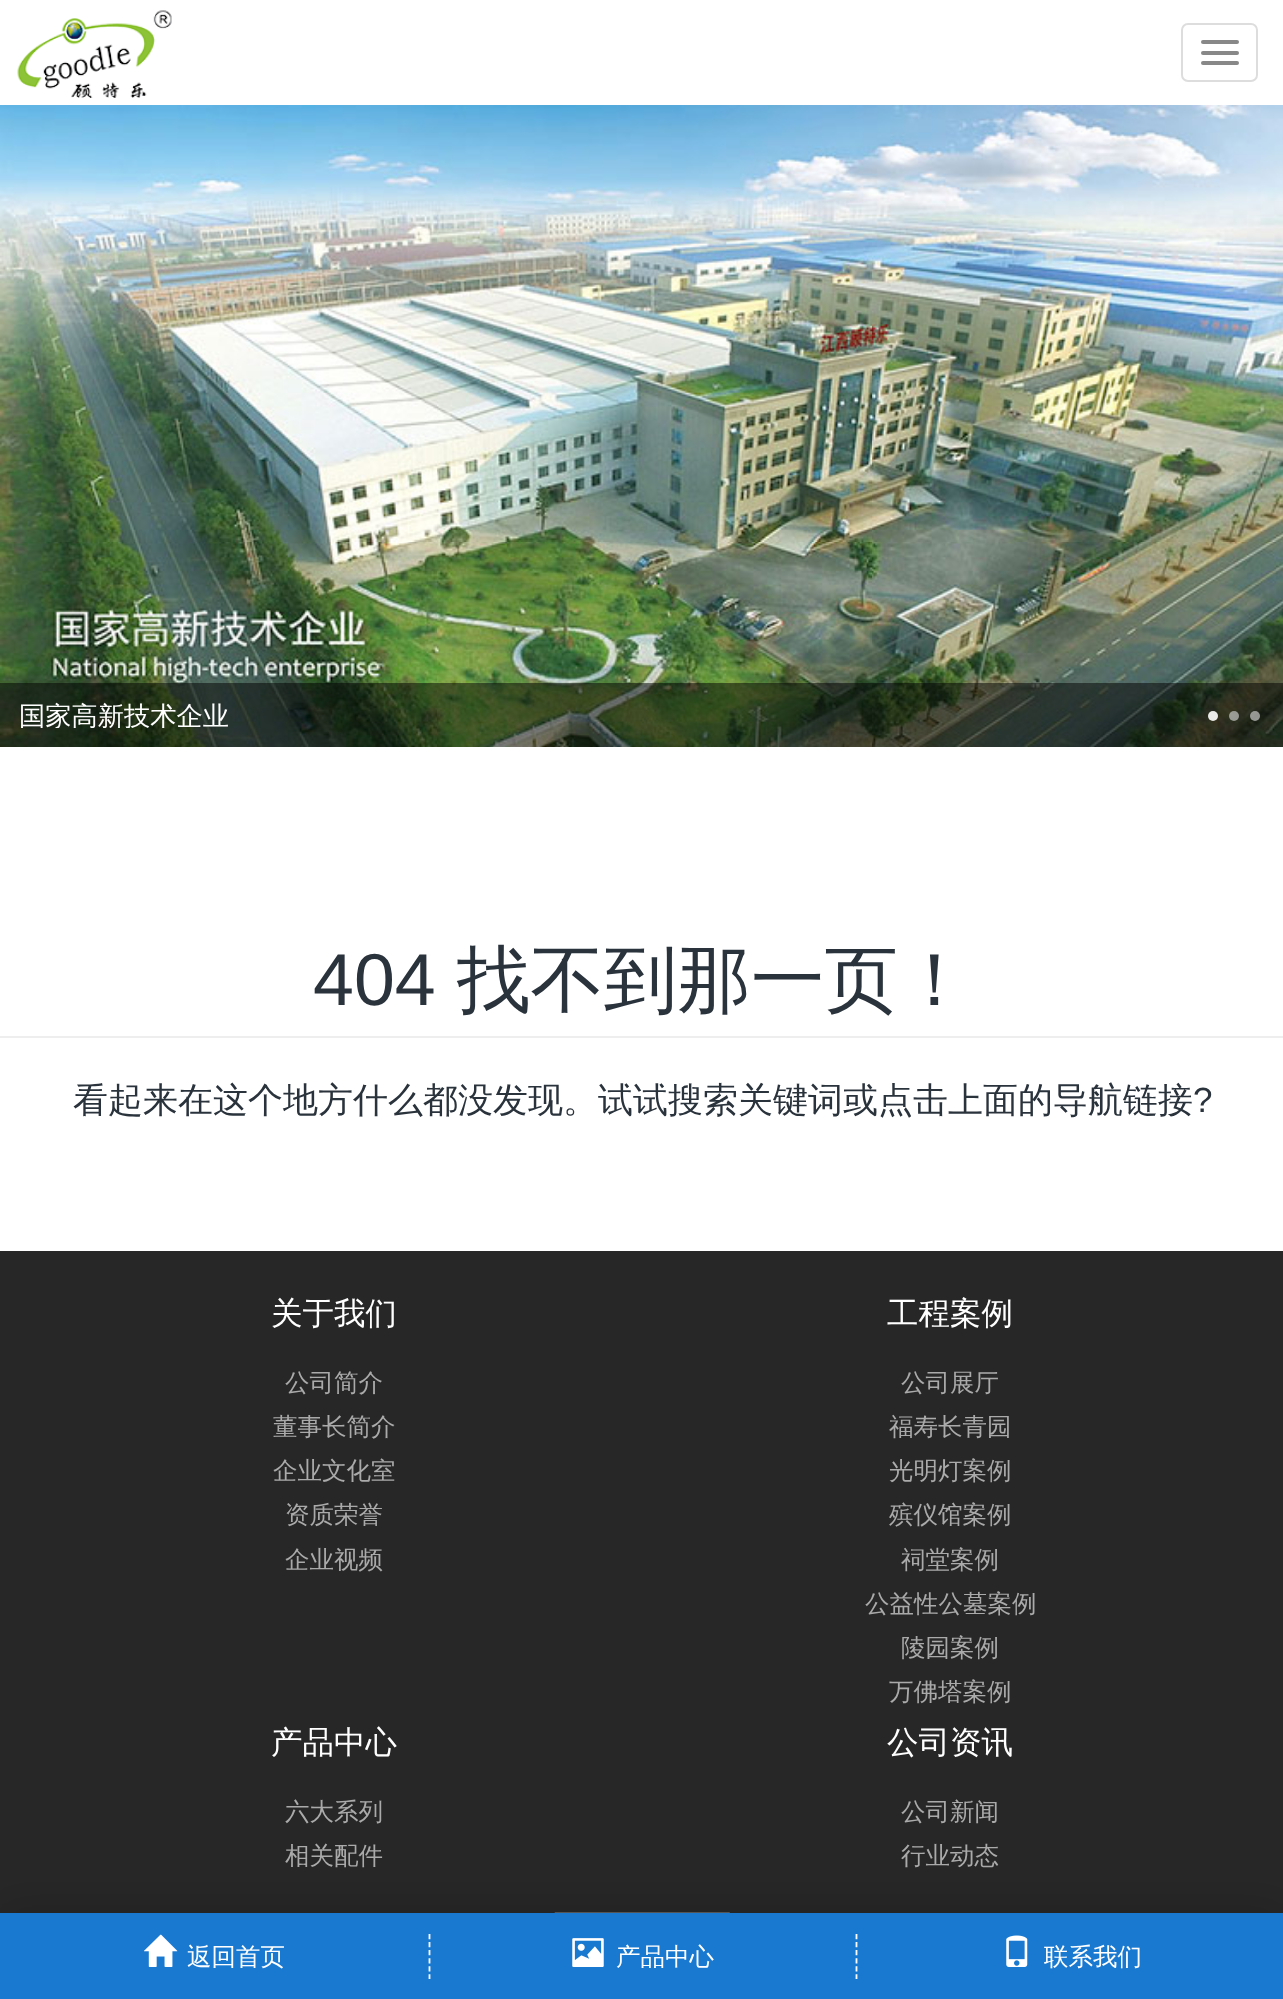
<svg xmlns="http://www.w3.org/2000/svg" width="1283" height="1999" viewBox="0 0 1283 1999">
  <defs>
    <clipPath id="clip1"><rect x="19" y="702" width="1150" height="26"/></clipPath>
    <filter id="blur1" x="-50%" y="-200%" width="200%" height="500%"><feGaussianBlur stdDeviation="21"/></filter>
  </defs>
  <rect width="100%" height="100%" fill="#ffffff"/>
  <image x="17" y="10" width="155" height="88" href="img1.png"/>
  <rect x="1182" y="24" width="75" height="57" rx="6" fill="none" stroke="#dddddd" stroke-width="2"/>
  <rect x="1201" y="40" width="38" height="4" rx="2" fill="#888888"/>
  <rect x="1201" y="51" width="38" height="4" rx="2" fill="#888888"/>
  <rect x="1201" y="61" width="38" height="4" rx="2" fill="#888888"/>
  <image x="0" y="105" width="1283" height="642" href="img2.png"/>
  <rect x="0" y="683" width="1283" height="64" fill="#000000" fill-opacity="0.5"/>
  <g clip-path="url(#clip1)">
    <text x="19" y="725" font-family="WenQuanYi Zen Hei" font-size="26.25" font-weight="500" fill="#ffffff">国家高新技术企业</text>
  </g>
  <circle cx="1213" cy="716" r="5" fill="#ffffff" fill-opacity="0.9"/>
  <circle cx="1234" cy="716" r="5" fill="#c8c8c8" fill-opacity="0.7"/>
  <circle cx="1255" cy="716" r="5" fill="#c8c8c8" fill-opacity="0.7"/>
  <rect x="0" y="1036" width="1283" height="2" fill="#eeeeee"/>
  <text x="313" y="1005" font-family="Liberation Sans" font-size="73.5" fill="#2a333c">404</text>
  <text x="457" y="1005" font-family="WenQuanYi Zen Hei" font-size="73.5" font-weight="500" fill="#2a333c">找不到那一页！</text>
  <text x="73" y="1112" font-family="WenQuanYi Zen Hei" font-size="35" font-weight="500" fill="#2a333c">看起来在这个地方什么都没发现。试试搜索关键词或点击上面的导航链接</text>
  <text x="1193" y="1112" font-family="Liberation Sans" font-size="35" fill="#2a333c">?</text>
  <rect x="0" y="1251" width="1283" height="662" fill="#272727"/>
  <text x="271" y="1324" font-family="WenQuanYi Zen Hei" font-size="31.5" font-weight="500" fill="#ffffff">关于我们</text>
  <text x="285" y="1391" font-family="WenQuanYi Zen Hei" font-size="24.5" font-weight="500" fill="#aaaaaa">公司简介</text>
  <text x="273" y="1435" font-family="WenQuanYi Zen Hei" font-size="24.5" font-weight="500" fill="#aaaaaa">董事长简介</text>
  <text x="273" y="1479" font-family="WenQuanYi Zen Hei" font-size="24.5" font-weight="500" fill="#aaaaaa">企业文化室</text>
  <text x="285" y="1523" font-family="WenQuanYi Zen Hei" font-size="24.5" font-weight="500" fill="#aaaaaa">资质荣誉</text>
  <text x="285" y="1568" font-family="WenQuanYi Zen Hei" font-size="24.5" font-weight="500" fill="#aaaaaa">企业视频</text>
  <text x="887" y="1324" font-family="WenQuanYi Zen Hei" font-size="31.5" font-weight="500" fill="#ffffff">工程案例</text>
  <text x="901" y="1391" font-family="WenQuanYi Zen Hei" font-size="24.5" font-weight="500" fill="#aaaaaa">公司展厅</text>
  <text x="889" y="1435" font-family="WenQuanYi Zen Hei" font-size="24.5" font-weight="500" fill="#aaaaaa">福寿长青园</text>
  <text x="889" y="1479" font-family="WenQuanYi Zen Hei" font-size="24.5" font-weight="500" fill="#aaaaaa">光明灯案例</text>
  <text x="889" y="1523" font-family="WenQuanYi Zen Hei" font-size="24.5" font-weight="500" fill="#aaaaaa">殡仪馆案例</text>
  <text x="901" y="1568" font-family="WenQuanYi Zen Hei" font-size="24.5" font-weight="500" fill="#aaaaaa">祠堂案例</text>
  <text x="865" y="1612" font-family="WenQuanYi Zen Hei" font-size="24.5" font-weight="500" fill="#aaaaaa">公益性公墓案例</text>
  <text x="901" y="1656" font-family="WenQuanYi Zen Hei" font-size="24.5" font-weight="500" fill="#aaaaaa">陵园案例</text>
  <text x="889" y="1700" font-family="WenQuanYi Zen Hei" font-size="24.5" font-weight="500" fill="#aaaaaa">万佛塔案例</text>
  <text x="271" y="1753" font-family="WenQuanYi Zen Hei" font-size="31.5" font-weight="500" fill="#ffffff">产品中心</text>
  <text x="285" y="1820" font-family="WenQuanYi Zen Hei" font-size="24.5" font-weight="500" fill="#aaaaaa">六大系列</text>
  <text x="285" y="1864" font-family="WenQuanYi Zen Hei" font-size="24.5" font-weight="500" fill="#aaaaaa">相关配件</text>
  <text x="887" y="1753" font-family="WenQuanYi Zen Hei" font-size="31.5" font-weight="500" fill="#ffffff">公司资讯</text>
  <text x="901" y="1820" font-family="WenQuanYi Zen Hei" font-size="24.5" font-weight="500" fill="#aaaaaa">公司新闻</text>
  <text x="901" y="1864" font-family="WenQuanYi Zen Hei" font-size="24.5" font-weight="500" fill="#aaaaaa">行业动态</text>
  <image x="554" y="1912" width="176" height="1" href="img3.png"/>
  <rect x="0" y="1908" width="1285" height="87" fill="#000000" fill-opacity="0.15" filter="url(#blur1)"/>
  <rect x="0" y="1913" width="1283" height="86" fill="#1979d0"/>
  <image x="144" y="1934" width="34" height="33" href="img4.png"/>
  <text x="187" y="1965" font-family="WenQuanYi Zen Hei" font-size="24.5" font-weight="500" fill="#ffffff">返回首页</text>
  <path d="M429.5 1934V1979" fill="none" stroke="#ffffff" stroke-width="1.8" stroke-dasharray="5.25 2.8"/>
  <image x="572" y="1938" width="32" height="29" href="img5.png"/>
  <text x="616" y="1965" font-family="WenQuanYi Zen Hei" font-size="24.5" font-weight="500" fill="#ffffff">产品中心</text>
  <path d="M856.5 1934V1979" fill="none" stroke="#ffffff" stroke-width="1.8" stroke-dasharray="5.25 2.8"/>
  <image x="1006" y="1935" width="22" height="32" href="img6.png"/>
  <text x="1044" y="1965" font-family="WenQuanYi Zen Hei" font-size="24.5" font-weight="500" fill="#ffffff">联系我们</text>
</svg>
